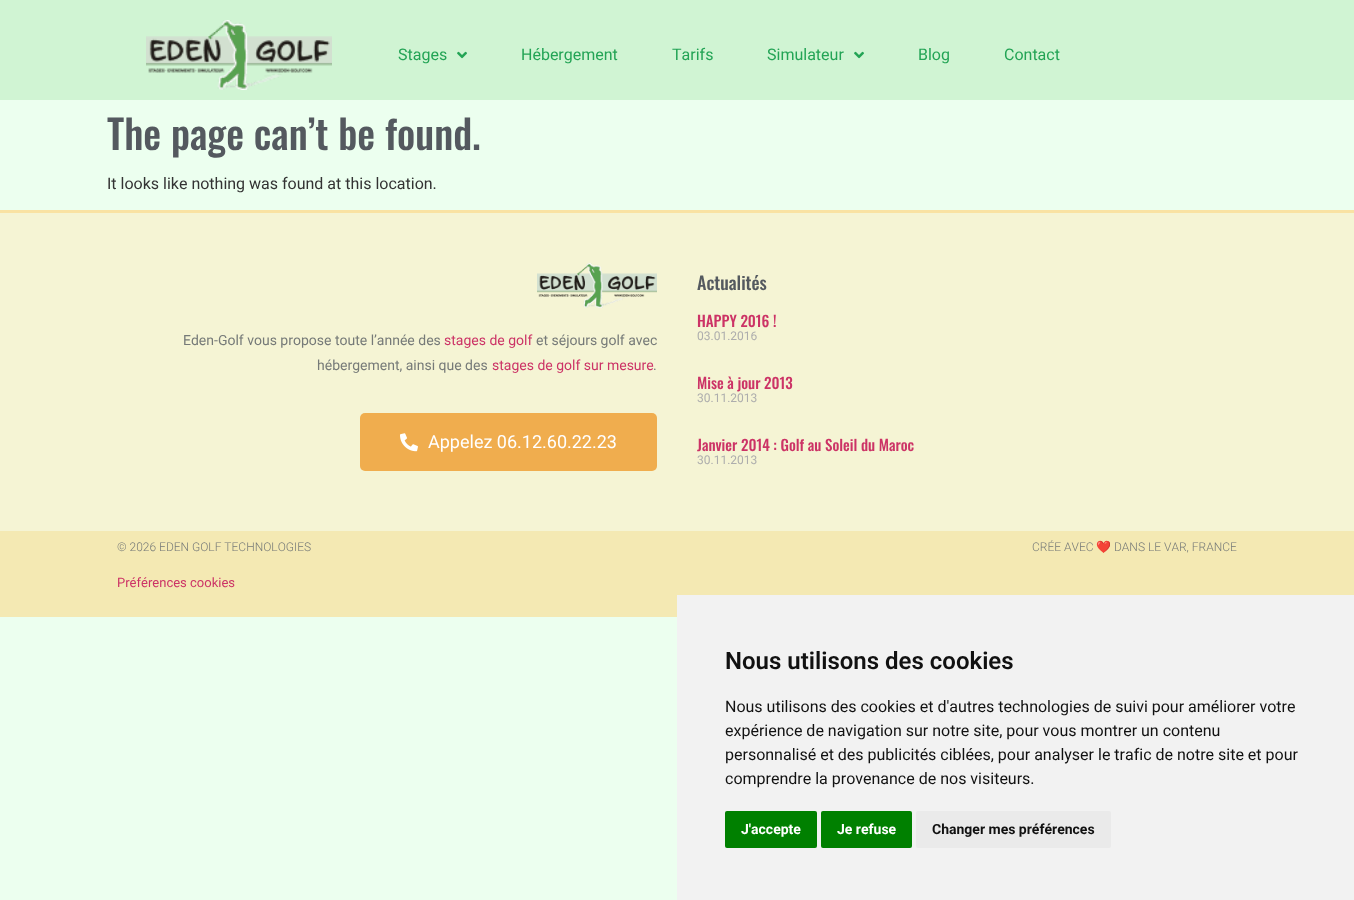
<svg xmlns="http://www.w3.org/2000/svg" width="1354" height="900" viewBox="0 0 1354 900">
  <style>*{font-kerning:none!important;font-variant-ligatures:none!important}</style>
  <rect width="100%" height="100%" fill="#ecffef"/>
  <rect x="0" y="0" width="1354" height="100" fill="#d0f4d3"/>
  <image x="146" y="20" width="186" height="70" href="img1.png"/>
  <text x="398" y="60" font-family="Roboto" font-size="16" fill="#23a455">Stages</text>
  <image x="457" y="51" width="10" height="8" href="img2.png"/>
  <text x="521" y="60" font-family="Roboto" font-size="16" fill="#23a455">Hébergement</text>
  <text x="672" y="60" font-family="Roboto" font-size="16" fill="#23a455">Tarifs</text>
  <text x="767" y="60" font-family="Roboto" font-size="16" fill="#23a455">Simulateur</text>
  <image x="854" y="51" width="10" height="8" href="img2.png"/>
  <text x="918" y="60" font-family="Roboto" font-size="16" fill="#23a455">Blog</text>
  <text x="1004" y="60" font-family="Roboto" font-size="16" fill="#23a455">Contact</text>
  <text x="107" y="150" font-family="Oswald" font-size="40" font-weight="500" fill="#54595f">The page can’t be found.</text>
  <text x="107" y="189" font-family="Roboto" font-size="16" fill="#333333">It looks like nothing was found at this location.</text>
  <rect x="0" y="213" width="1354" height="318" fill="#f5f4d4"/>
  <rect x="0" y="210" width="1354" height="3" fill="#f9e2a3"/>
  <image x="537" y="263" width="120" height="45" href="img3.png"/>
  <text x="183" y="345" font-family="Roboto" font-size="14" fill="#767a78">Eden-Golf vous propose toute l’année des</text>
  <text x="444" y="345" font-family="Roboto" font-size="14" fill="#cc3366">stages de golf</text>
  <text x="536" y="345" font-family="Roboto" font-size="14" fill="#767a78">et séjours golf avec</text>
  <text x="317" y="370" font-family="Roboto" font-size="14" fill="#767a78">hébergement, ainsi que des</text>
  <text x="492" y="370" font-family="Roboto" font-size="14" fill="#cc3366">stages de golf sur mesure</text>
  <text x="653" y="370" font-family="Roboto" font-size="14" fill="#767a78">.</text>
  <rect x="360" y="413" width="297" height="58" rx="5" fill="#f0ad4e"/>
  <image x="400" y="433" width="18" height="19" href="img4.png"/>
  <text x="428" y="448" font-family="Roboto" font-size="18" fill="#ffffff">Appelez 06.12.60.22.23</text>
  <text x="697" y="290" font-family="Oswald" font-size="18" font-weight="500" fill="#54595f">Actualités</text>
  <text x="697" y="327" font-family="Oswald" font-size="15" font-weight="500" fill="#cc3366">HAPPY 2016 !</text>
  <text x="697" y="340" font-family="Roboto" font-size="12" fill="#adadad">03.01.2016</text>
  <text x="697" y="389" font-family="Oswald" font-size="15" font-weight="500" fill="#cc3366">Mise à jour 2013</text>
  <text x="697" y="402" font-family="Roboto" font-size="12" fill="#adadad">30.11.2013</text>
  <text x="697" y="451" font-family="Oswald" font-size="15" font-weight="500" fill="#cc3366">Janvier 2014 : Golf au Soleil du Maroc</text>
  <text x="697" y="464" font-family="Roboto" font-size="12" fill="#adadad">30.11.2013</text>
  <rect x="0" y="531" width="1354" height="86" fill="#f4e9b3"/>
  <text x="117" y="551" font-family="Roboto" font-size="12" font-weight="300" fill="#767a78">© 2026 EDEN GOLF TECHNOLOGIES</text>
  <text x="117" y="587" font-family="Roboto" font-size="13" fill="#cc3366">Préférences cookies</text>
  <text x="1032" y="551" font-family="Roboto" font-size="12" font-weight="300" fill="#767a78">CRÉE AVEC</text>
  <text x="1096" y="551" font-family="Noto Color Emoji" font-size="12" fill="#767a78">❤</text>
  <text x="1114" y="551" font-family="Roboto" font-size="12" font-weight="300" fill="#767a78">DANS LE VAR, FRANCE</text>
  <rect x="677" y="595" width="677" height="305" fill="#f2f2f2"/>
  <text x="725" y="669" font-family="Roboto" font-size="24" font-weight="600" fill="#111111">Nous utilisons des cookies</text>
  <text x="725" y="712" font-family="Roboto" font-size="16" fill="#111111">Nous utilisons des cookies et d'autres technologies de suivi pour améliorer votre</text>
  <text x="725" y="736" font-family="Roboto" font-size="16" fill="#111111">expérience de navigation sur notre site, pour vous montrer un contenu</text>
  <text x="725" y="760" font-family="Roboto" font-size="16" fill="#111111">personnalisé et des publicités ciblées, pour analyser le trafic de notre site et pour</text>
  <text x="725" y="784" font-family="Roboto" font-size="16" fill="#111111">comprendre la provenance de nos visiteurs.</text>
  <rect x="725" y="811" width="92" height="37" rx="2" fill="#008000"/>
  <text x="741" y="834" font-family="Roboto" font-size="14" font-weight="bold" fill="#ffffff">J'accepte</text>
  <rect x="821" y="811" width="91" height="37" rx="2" fill="#008000"/>
  <text x="837" y="834" font-family="Roboto" font-size="14" font-weight="bold" fill="#ffffff">Je refuse</text>
  <rect x="916" y="811" width="195" height="37" rx="2" fill="#eaeaea"/>
  <text x="932" y="834" font-family="Roboto" font-size="14" font-weight="bold" fill="#111111">Changer mes préférences</text>
</svg>
